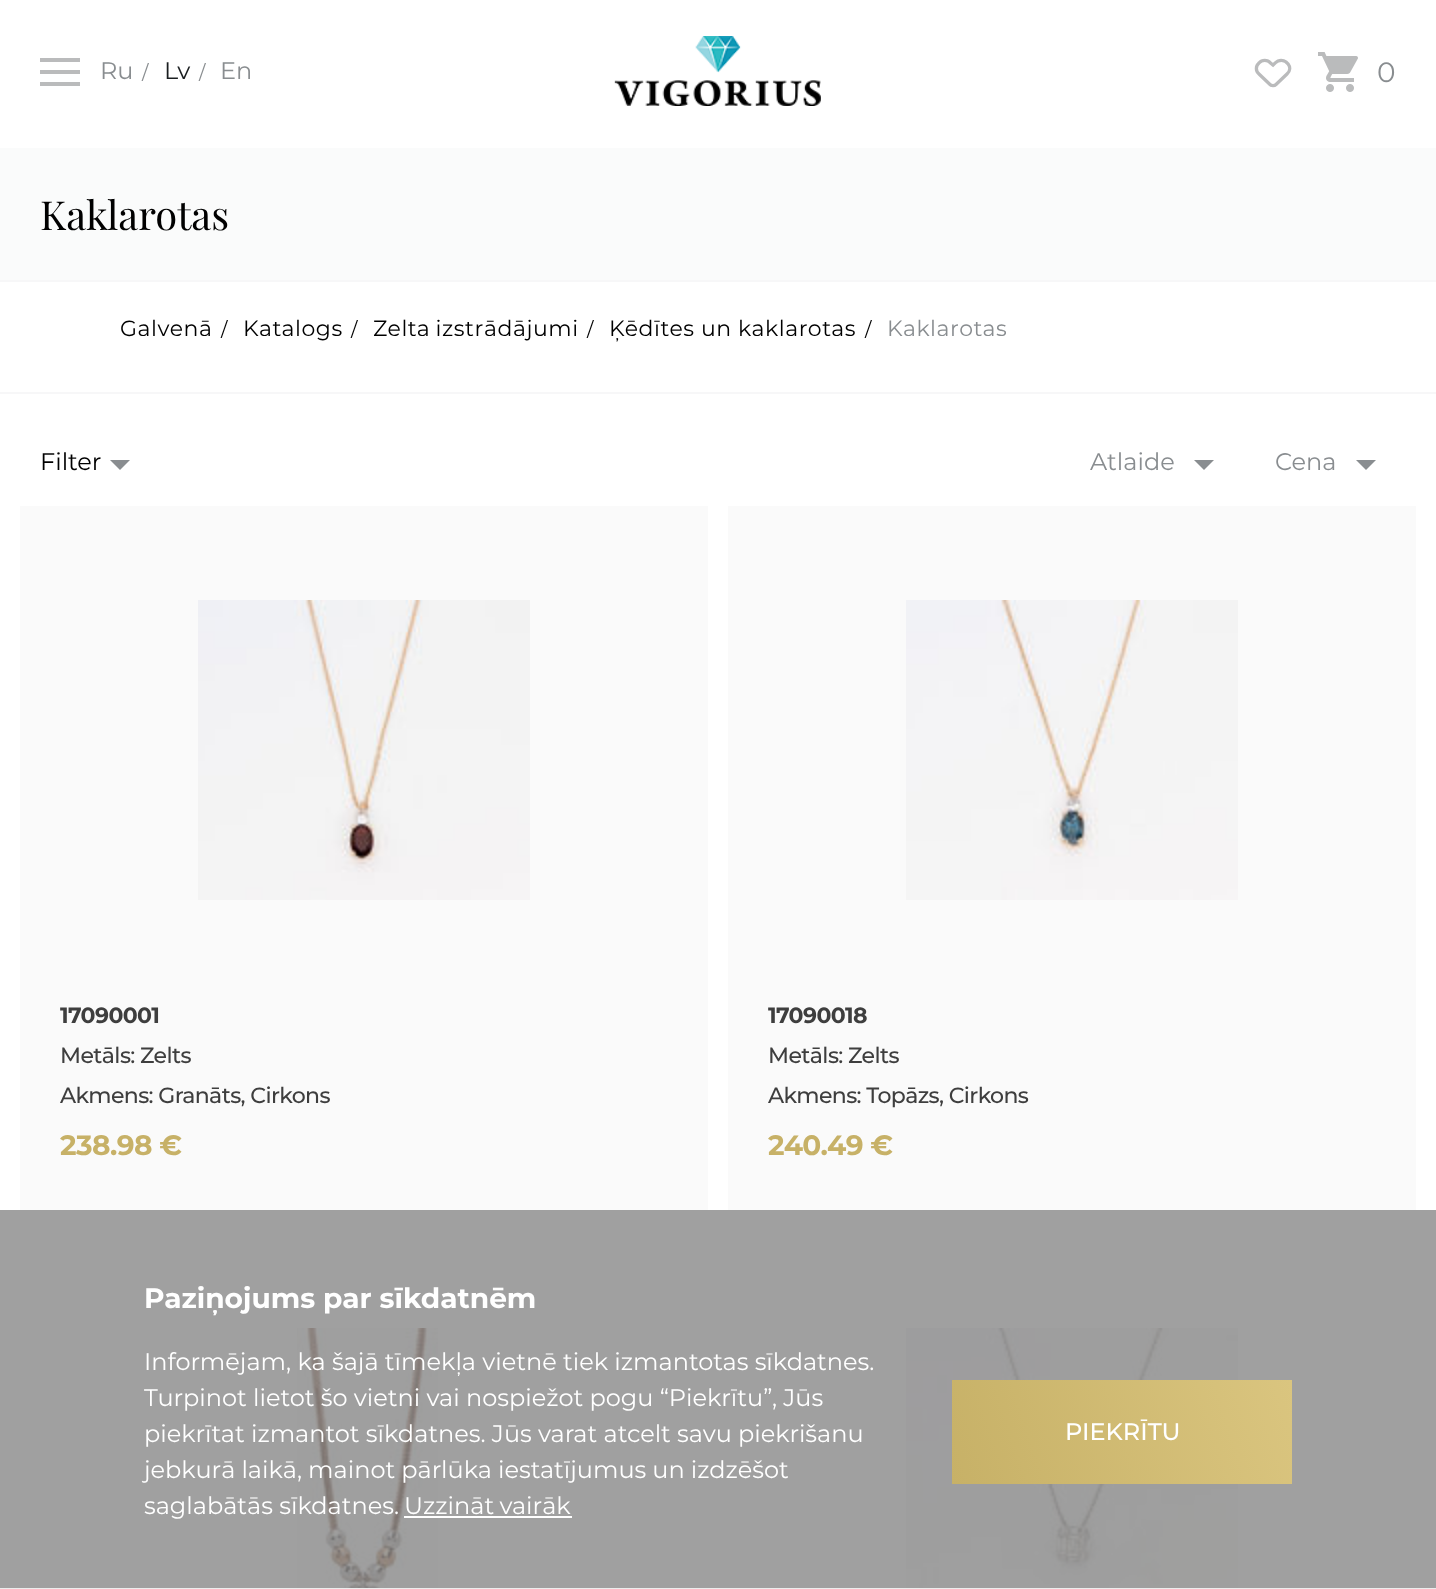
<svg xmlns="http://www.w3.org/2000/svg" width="1436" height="1589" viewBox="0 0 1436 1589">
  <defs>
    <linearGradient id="g1" gradientUnits="userSpaceOnUse" x1="953" y1="1487" x2="1291" y2="1377"><stop offset="0" stop-color="#c7b167"/><stop offset="1" stop-color="#dac57f"/></linearGradient>
  </defs>
  <rect width="100%" height="100%" fill="#ffffff"/>
  <rect x="0" y="1210" width="1436" height="378" fill="#a0a0a0"/>
  <image x="614" y="36" width="207" height="70" href="img1.png"/>
  <rect x="40" y="58" width="40" height="4" fill="#babbbc"/>
  <rect x="40" y="70" width="40" height="4" fill="#babbbc"/>
  <rect x="40" y="82" width="40" height="4" fill="#babbbc"/>
  <text x="100" y="79" font-family="Montserrat" font-size="24" fill="#898d90">Ru</text>
  <text x="142" y="79" font-family="Montserrat" font-size="19" fill="#898d90">/</text>
  <text x="164" y="79" font-family="Montserrat" font-size="24" fill="#1a1e20">Lv</text>
  <text x="199" y="79" font-family="Montserrat" font-size="19" fill="#898d90">/</text>
  <text x="220" y="79" font-family="Montserrat" font-size="24" fill="#898d90">En</text>
  <path d="M1287 74L1276 84.5C1274.5 86 1271.5 86 1270 84.5L1259 74C1255.5 71 1255.5 66 1259 63C1262 59.5 1267.5 59.5 1270.5 63L1273 65C1274.5 63.5 1276 62 1278 61C1286 58 1294 67.5 1287 74Z" fill="none" stroke="#babbbc" stroke-width="3.3"/>
  <image x="1318" y="52" width="40" height="40" href="img2.png"/>
  <text x="1377" y="82" font-family="Montserrat" font-size="28" fill="#898d90">0</text>
  <rect x="0" y="148" width="1436" height="132" fill="#fafbfb"/>
  <text x="40" y="230" font-family="Playfair Display" font-size="40" fill="#000000">Kaklarotas</text>
  <rect x="0" y="280" width="1436" height="2" fill="#f7f7f8"/>
  <rect x="0" y="392" width="1436" height="2" fill="#f7f7f8"/>
  <text x="120" y="336" font-family="Montserrat" font-size="22" letter-spacing="0.55" fill="#000000">Galvenā</text>
  <text x="221" y="336" font-family="Montserrat" font-size="19" letter-spacing="0.55" fill="#000000">/</text>
  <text x="243" y="336" font-family="Montserrat" font-size="22" letter-spacing="0.55" fill="#000000">Katalogs</text>
  <text x="351" y="336" font-family="Montserrat" font-size="19" letter-spacing="0.55" fill="#000000">/</text>
  <text x="373" y="336" word-spacing="-1" font-family="Montserrat" font-size="22" letter-spacing="0.55" fill="#000000">Zelta izstrādājumi</text>
  <text x="587" y="336" font-family="Montserrat" font-size="19" letter-spacing="0.55" fill="#000000">/</text>
  <text x="609" y="336" font-family="Montserrat" font-size="22" letter-spacing="0.55" fill="#000000">Ķēdītes un kaklarotas</text>
  <text x="865" y="336" font-family="Montserrat" font-size="19" letter-spacing="0.55" fill="#000000">/</text>
  <text x="887" y="336" font-family="Montserrat" font-size="22" letter-spacing="0.55" fill="#898d90">Kaklarotas</text>
  <text x="40" y="470" font-family="Montserrat" font-size="24" fill="#000000">Filter</text>
  <path d="M110 460H130L120 470Z" fill="#898d90"/>
  <text x="1090" y="470" font-family="Montserrat" font-size="24" fill="#898d90">Atlaide</text>
  <path d="M1194 460H1214L1204 470Z" fill="#898d90"/>
  <text x="1275" y="470" font-family="Montserrat" font-size="24" fill="#898d90">Cena</text>
  <path d="M1356 460H1376L1366 470Z" fill="#898d90"/>
  <rect x="20" y="506" width="688" height="704" fill="#fafafa"/>
  <image x="198" y="600" width="332" height="300" href="img3.png"/>
  <text x="60" y="1023" font-family="Montserrat" font-size="22" font-weight="bold" letter-spacing="-0.6" fill="#3e3e3e">17090001</text>
  <text x="60" y="1063" font-family="Montserrat" font-size="22" font-weight="500" letter-spacing="-0.6" fill="#3e3e3e">Metāls: Zelts</text>
  <text x="60" y="1103" font-family="Montserrat" font-size="22" font-weight="500" letter-spacing="-0.6" fill="#3e3e3e">Akmens: Granāts, Cirkons</text>
  <text x="60" y="1155" font-family="Montserrat" font-size="28" font-weight="bold" letter-spacing="-0.6" fill="#c7b167">238.98 €</text>
  <rect x="728" y="506" width="688" height="704" fill="#fafafa"/>
  <image x="906" y="600" width="332" height="300" href="img4.png"/>
  <text x="768" y="1023" font-family="Montserrat" font-size="22" font-weight="bold" letter-spacing="-0.6" fill="#3e3e3e">17090018</text>
  <text x="768" y="1063" font-family="Montserrat" font-size="22" font-weight="500" letter-spacing="-0.6" fill="#3e3e3e">Metāls: Zelts</text>
  <text x="768" y="1103" font-family="Montserrat" font-size="22" font-weight="500" letter-spacing="-0.6" fill="#3e3e3e">Akmens: Topāzs, Cirkons</text>
  <text x="768" y="1155" font-family="Montserrat" font-size="28" font-weight="bold" letter-spacing="-0.6" fill="#c7b167">240.49 €</text>
  <image x="297" y="1328" width="141" height="260" href="img5.png"/>
  <image x="906" y="1328" width="332" height="260" href="img6.png"/>
  <rect x="0" y="1588" width="1436" height="1" fill="#eceded"/>
  <text x="144" y="1308" font-family="Montserrat" font-size="28.1" font-weight="bold" fill="#ffffff">Paziņojums par sīkdatnēm</text>
  <text x="144" y="1370" font-family="Montserrat" font-size="24" fill="#ffffff">Informējam, ka šajā tīmekļa vietnē tiek izmantotas sīkdatnes.</text>
  <text x="144" y="1406" font-family="Montserrat" font-size="24" fill="#ffffff">Turpinot lietot šo vietni vai nospiežot pogu “Piekrītu”, Jūs</text>
  <text x="144" y="1442" font-family="Montserrat" font-size="24" fill="#ffffff">piekrītat izmantot sīkdatnes. Jūs varat atcelt savu piekrišanu</text>
  <text x="144" y="1478" word-spacing="-0.25" font-family="Montserrat" font-size="24" fill="#ffffff">jebkurā laikā, mainot pārlūka iestatījumus un izdzēšot</text>
  <text x="144" y="1514" font-family="Montserrat" font-size="24" fill="#ffffff">saglabātās sīkdatnes.</text>
  <text x="404" y="1514" word-spacing="-1" font-family="Montserrat" font-size="24" fill="#ffffff">Uzzināt vairāk</text>
  <rect x="404" y="1516" width="168" height="2" fill="#ffffff"/>
  <rect x="952" y="1380" width="340" height="104" fill="url(#g1)"/>
  <text x="1065" y="1440" font-family="Montserrat" font-size="24" font-weight="500" fill="#ffffff">PIEKRĪTU</text>
</svg>
